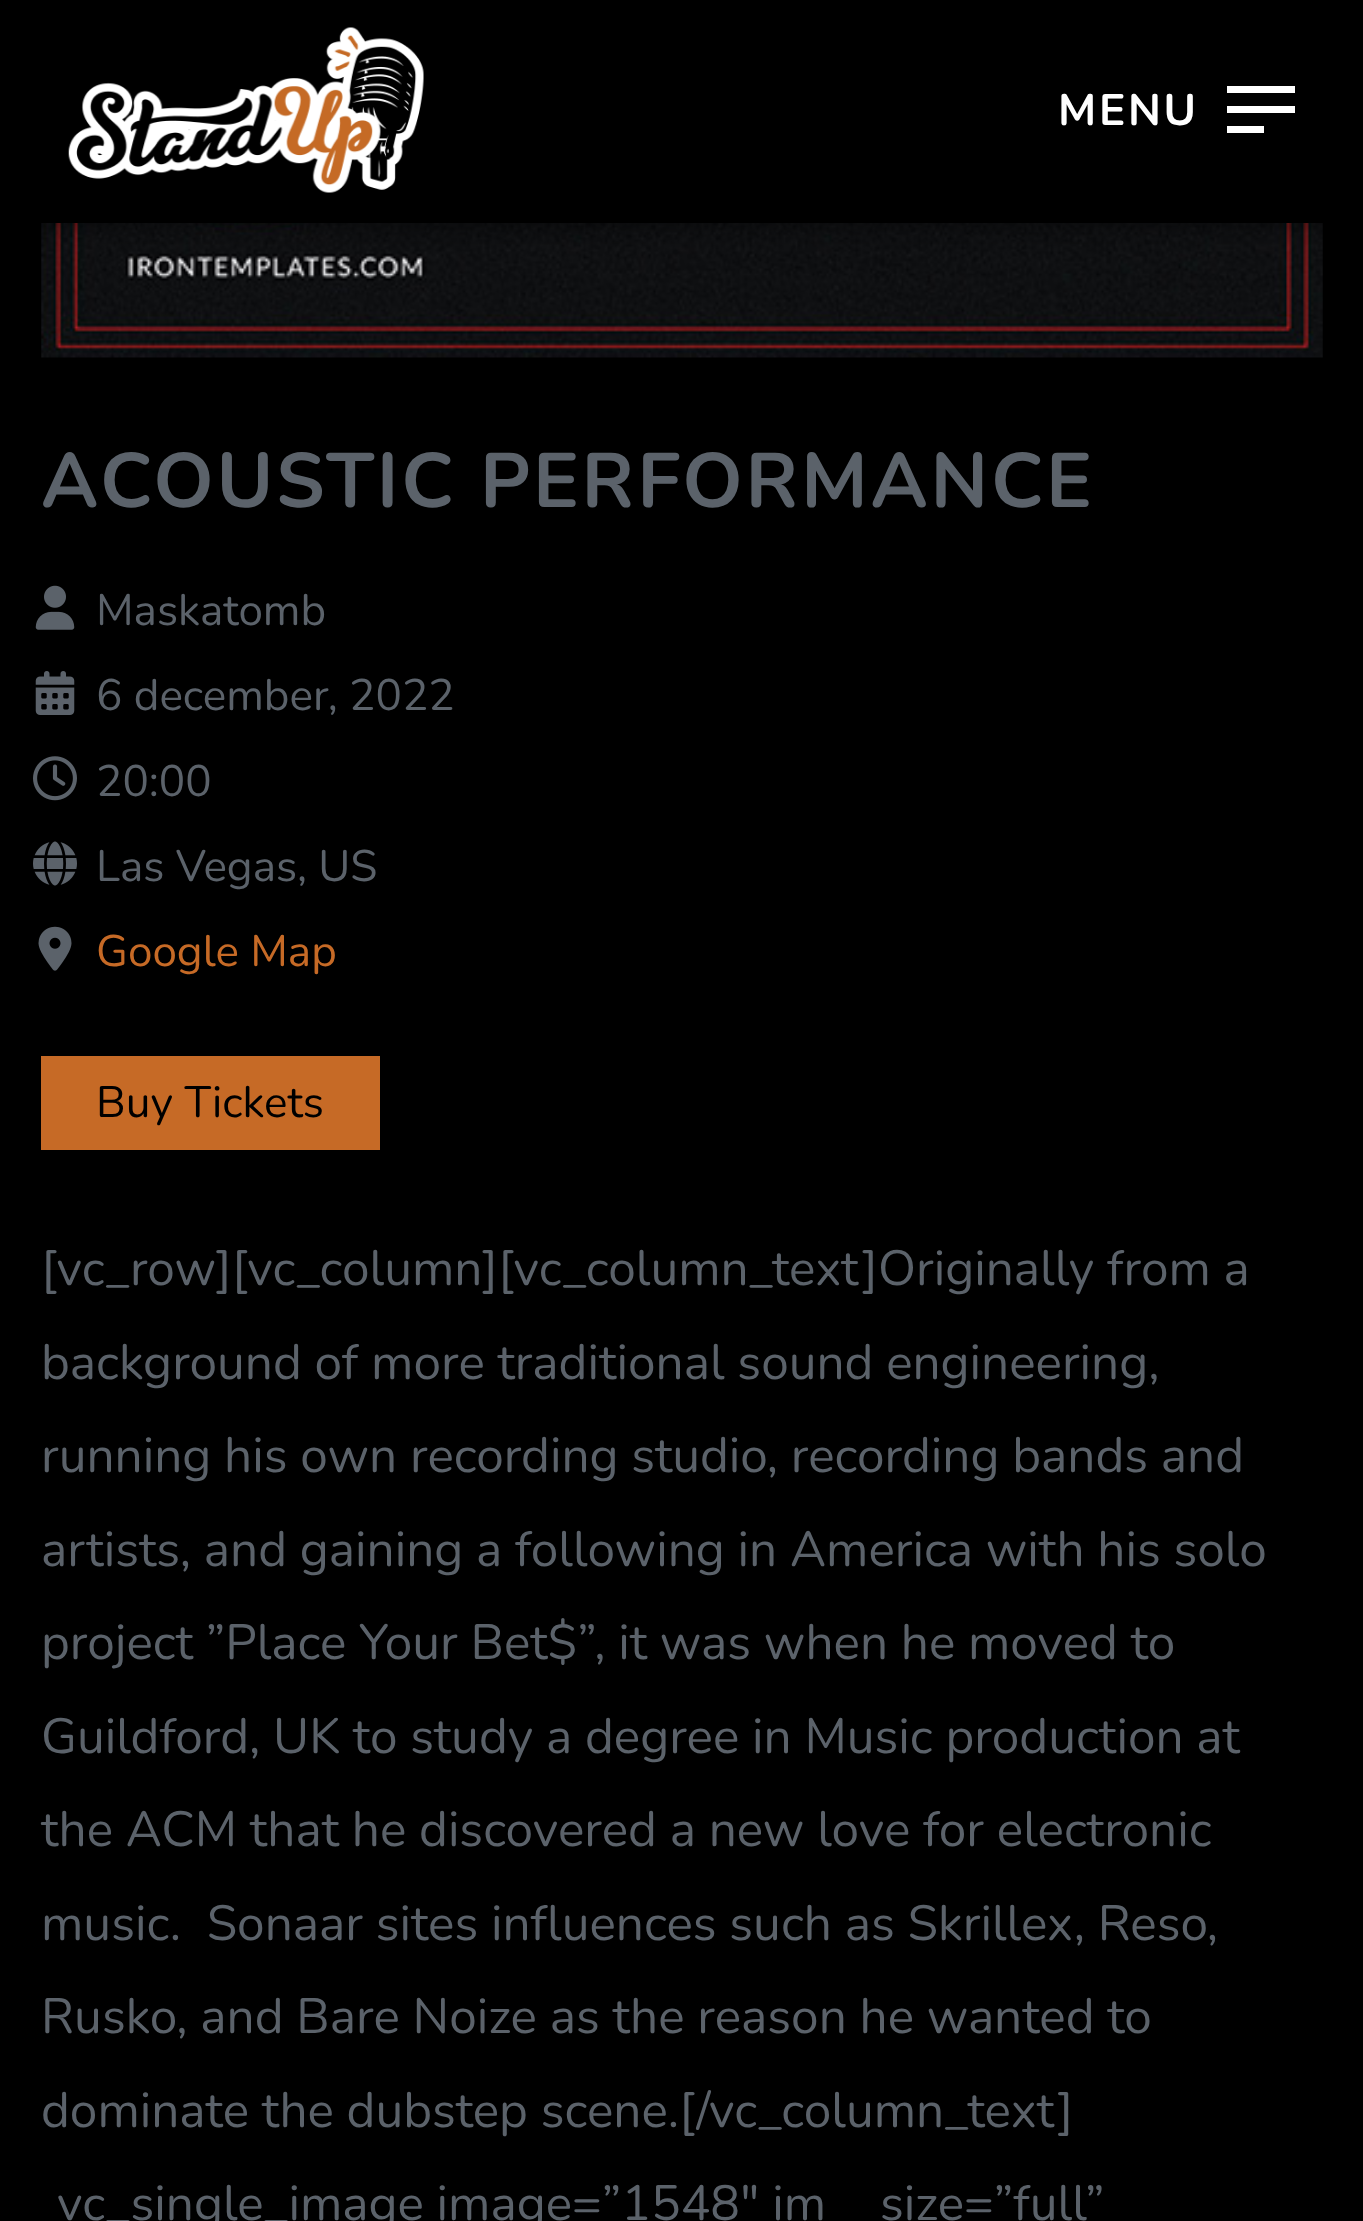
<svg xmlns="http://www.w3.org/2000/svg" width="1363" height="2221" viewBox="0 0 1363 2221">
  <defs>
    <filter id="blur1" x="-50%" y="-200%" width="200%" height="500%"><feGaussianBlur stdDeviation="14"/></filter>
  </defs>
  <rect width="100%" height="100%" fill="#000000"/>
  <image x="41" y="223" width="1282" height="135" href="img2.png"/>
  <rect x="0" y="0" width="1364" height="223" fill="#000000" fill-opacity="0.5" filter="url(#blur1)"/>
  <image x="68" y="27" width="356" height="166" href="img1.png"/>
  <text x="1058" y="125" font-family="Nunito" font-size="44" font-weight="bold" letter-spacing="2.75" fill="#ffffff">MENU</text>
  <rect x="1227" y="106" width="68" height="7" fill="#ffffff"/>
  <rect x="1227" y="86" width="68" height="7" fill="#ffffff"/>
  <rect x="1227" y="126" width="37" height="7" fill="#ffffff"/>
  <text x="41" y="507" font-family="Nunito" font-size="77" font-weight="bold" letter-spacing="2.75" fill="#5b626a">ACOUSTIC PERFORMANCE</text>
  <image x="35" y="585" width="40" height="45" href="img3.png"/>
  <text x="96" y="625" font-family="Nunito" font-size="44" fill="#5b626a">Maskatomb</text>
  <image x="35" y="671" width="40" height="44" href="img4.png"/>
  <text x="96" y="710" font-family="Nunito" font-size="44" fill="#5b626a">6 december, 2022</text>
  <image x="33" y="756" width="44" height="45" href="img5.png"/>
  <text x="96" y="796" font-family="Nunito" font-size="44" fill="#5b626a">20:00</text>
  <image x="33" y="841" width="44" height="45" href="img6.png"/>
  <text x="96" y="881" font-family="Nunito" font-size="44" fill="#5b626a">Las Vegas, US</text>
  <image x="38" y="926" width="34" height="45" href="img7.png"/>
  <text x="96" y="966" font-family="Nunito" font-size="44" fill="#c66a26">Google Map</text>
  <rect x="41" y="1056" width="339" height="94" fill="#c66a26"/>
  <text x="96" y="1117" font-family="Nunito" font-size="44" fill="#000000">Buy Tickets</text>
  <text x="41" y="1285" font-family="Nunito" font-size="49.5" fill="#5b626a">[vc_row][vc_column][vc_column_text]Originally from a</text>
  <text x="41" y="1379" font-family="Nunito" font-size="49.5" fill="#5b626a">background of more traditional sound engineering,</text>
  <text x="41" y="1472" font-family="Nunito" font-size="49.5" fill="#5b626a">running his own recording studio, recording bands and</text>
  <text x="41" y="1566" font-family="Nunito" font-size="49.5" fill="#5b626a">artists, and gaining a following in America with his solo</text>
  <text x="41" y="1659" font-family="Nunito" font-size="49.5" fill="#5b626a">project ”Place Your Bet$”, it was when he moved to</text>
  <text x="41" y="1753" font-family="Nunito" font-size="49.5" fill="#5b626a">Guildford, UK to study a degree in Music production at</text>
  <text x="41" y="1846" font-family="Nunito" font-size="49.5" fill="#5b626a">the ACM that he discovered a new love for electronic</text>
  <text x="41" y="1940" font-family="Nunito" font-size="49.5" fill="#5b626a" xml:space="preserve">music.  Sonaar sites influences such as Skrillex, Reso,</text>
  <text x="41" y="2033" font-family="Nunito" font-size="49.5" fill="#5b626a">Rusko, and Bare Noize as the reason he wanted to</text>
  <text x="41" y="2127" font-family="Nunito" font-size="49.5" fill="#5b626a">dominate the dubstep scene.[/vc_column_text]</text>
  <text x="57" y="2220" font-family="Nunito" font-size="49.5" fill="#5b626a">vc_single_image image=”1548″ im</text>
  <text x="880" y="2220" font-family="Nunito" font-size="49.5" fill="#5b626a">size=”full”</text>
</svg>
